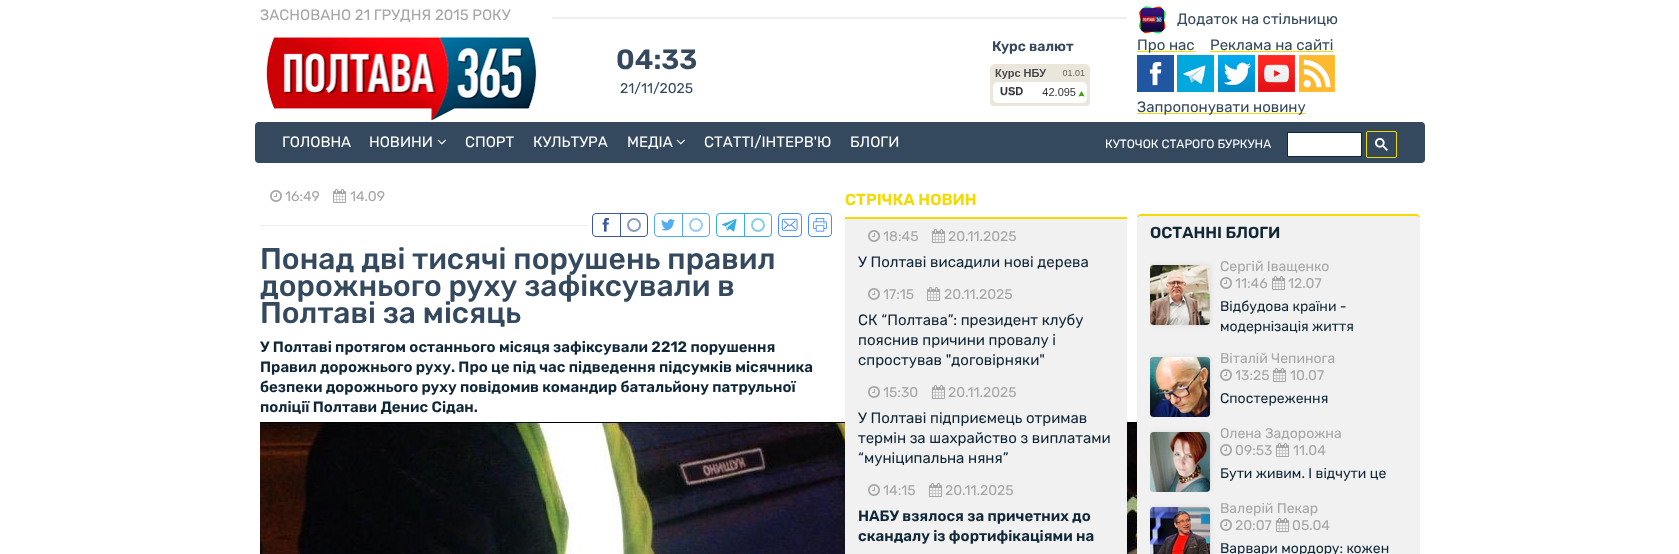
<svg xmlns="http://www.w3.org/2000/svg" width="1679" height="554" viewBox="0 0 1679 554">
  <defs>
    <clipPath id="clip1"><rect x="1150" y="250" width="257" height="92"/></clipPath>
    <filter id="blur1" x="-50%" y="-200%" width="200%" height="500%"><feGaussianBlur stdDeviation="2.5"/></filter>
    <filter id="blur2" x="-50%" y="-200%" width="200%" height="500%"><feGaussianBlur stdDeviation="0.5"/></filter>
    <clipPath id="clip2"><rect x="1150" y="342" width="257" height="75"/></clipPath>
    <clipPath id="clip3"><rect x="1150" y="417" width="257" height="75"/></clipPath>
    <clipPath id="clip4"><rect x="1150" y="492" width="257" height="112"/></clipPath>
  </defs>
  <rect width="100%" height="100%" fill="#ffffff"/>
  <text x="260" y="20" font-family="Rubik" font-size="15" fill="#a6a6a6">ЗАСНОВАНО 21 ГРУДНЯ 2015 РОКУ</text>
  <rect x="552" y="17" width="575" height="2" fill="#eeeeee"/>
  <image x="1138" y="6" width="28" height="28" href="img1.png"/>
  <text x="1177" y="24" font-family="Rubik" font-size="15" fill="#34495e">Додаток на стільницю</text>
  <image x="266" y="37" width="271" height="84" href="img2.png"/>
  <text x="992" y="51" font-family="Rubik" font-size="14" font-weight="600" fill="#34495e">Курс валют</text>
  <image x="990" y="64" width="100" height="42" href="img3.png"/>
  <rect x="1137" y="51" width="58" height="1" fill="#f4da00"/>
  <text x="1137" y="50" font-family="Rubik" font-size="15" fill="#34495e">Про нас</text>
  <text x="1210" y="50" font-family="Rubik" font-size="15" fill="#34495e">Реклама на сайті</text>
  <rect x="1210" y="51" width="123" height="1" fill="#f4da00"/>
  <image x="1137" y="55" width="37" height="37" href="img4.png"/>
  <image x="1177" y="55" width="37" height="37" href="img5.png"/>
  <image x="1218" y="55" width="37" height="37" href="img6.png"/>
  <image x="1258" y="55" width="37" height="37" href="img7.png"/>
  <image x="1299" y="55" width="36" height="37" href="img8.png"/>
  <rect x="1137" y="113" width="169" height="1" fill="#f4da00"/>
  <text x="1137" y="112" font-family="Rubik" font-size="15" fill="#34495e">Запропонувати новину</text>
  <text x="616" y="69" font-family="Rubik" font-size="28" font-weight="600" fill="#34495e">04:33</text>
  <text x="620" y="93" font-family="Rubik" font-size="14" fill="#34495e">21/11/2025</text>
  <rect x="255" y="122" width="1170" height="41" rx="4" fill="#34495e"/>
  <text x="282" y="147" font-family="Rubik" font-size="15" fill="#ffffff">ГОЛОВНА</text>
  <text x="369" y="147" font-family="Rubik" font-size="15" fill="#ffffff">НОВИНИ</text>
  <image x="437" y="139" width="9" height="6" href="img9.png"/>
  <text x="465" y="147" font-family="Rubik" font-size="15" fill="#ffffff">СПОРТ</text>
  <text x="533" y="147" font-family="Rubik" font-size="15" fill="#ffffff">КУЛЬТУРА</text>
  <text x="627" y="147" font-family="Rubik" font-size="15" fill="#ffffff">МЕДІА</text>
  <image x="676" y="139" width="9" height="6" href="img9.png"/>
  <text x="704" y="147" font-family="Rubik" font-size="15" fill="#ffffff">СТАТТІ/ІНТЕРВ'Ю</text>
  <text x="850" y="147" font-family="Rubik" font-size="15" fill="#ffffff">БЛОГИ</text>
  <text x="1105" y="148" font-family="Rubik" font-size="12" fill="#ffffff">КУТОЧОК СТАРОГО БУРКУНА</text>
  <rect x="1287.5" y="132.5" width="74" height="24" fill="#ffffff" stroke="#102737"/>
  <rect x="1366.5" y="131.5" width="30" height="26" rx="1.5" fill="none" stroke="#f4da00"/>
  <image x="1375" y="138" width="13" height="13" href="img10.png"/>
  <image x="270" y="190" width="12" height="12" href="img11.png"/>
  <text x="285" y="201" font-family="Rubik" font-size="14" fill="#a6a6a6">16:49</text>
  <image x="333" y="189" width="13" height="14" href="img12.png"/>
  <text x="350" y="201" font-family="Rubik" font-size="14" fill="#a6a6a6">14.09</text>
  <rect x="260" y="225" width="329" height="1" fill="#eeeeee"/>
  <rect x="592.5" y="213.5" width="55" height="23" rx="3.5" fill="none" stroke="#3b5998"/>
  <image x="602" y="218" width="8" height="14" href="img13.png"/>
  <rect x="620" y="214" width="1" height="22" fill="#3b5998"/>
  <circle cx="634" cy="225" r="6" fill="none" stroke="#899bc1" stroke-width="2"/>
  <rect x="654.5" y="213.5" width="55" height="23" rx="3.5" fill="none" stroke="#55acee"/>
  <image x="661" y="219" width="14" height="12" href="img14.png"/>
  <rect x="682" y="214" width="1" height="22" fill="#55acee"/>
  <circle cx="696" cy="225" r="6" fill="none" stroke="#99cdf5" stroke-width="2"/>
  <rect x="716.5" y="213.5" width="55" height="23" rx="3.5" fill="none" stroke="#37aee2"/>
  <image x="721" y="219" width="16" height="13" href="img15.png"/>
  <rect x="744" y="214" width="1" height="22" fill="#37aee2"/>
  <circle cx="758" cy="225" r="6" fill="none" stroke="#87ceee" stroke-width="2"/>
  <rect x="778.5" y="213.5" width="23" height="23" rx="3.5" fill="none" stroke="#498bfa"/>
  <image x="781" y="218" width="17" height="13" href="img16.png"/>
  <rect x="808.5" y="213.5" width="23" height="23" rx="3.5" fill="none" stroke="#498bfa"/>
  <image x="813" y="218" width="14" height="14" href="img17.png"/>
  <text x="260" y="269" font-family="Rubik" font-size="30" font-weight="500" fill="#34495e">Понад дві тисячі порушень правил</text>
  <text x="260" y="296" font-family="Rubik" font-size="30" font-weight="500" fill="#34495e">дорожнього руху зафіксували в</text>
  <text x="260" y="323" font-family="Rubik" font-size="30" font-weight="500" fill="#34495e">Полтаві за місяць</text>
  <text x="260" y="352" font-family="Rubik" font-size="15" font-weight="600" fill="#102737">У Полтаві протягом останнього місяця зафіксували 2212 порушення</text>
  <text x="260" y="372" font-family="Rubik" font-size="15" font-weight="600" fill="#102737">Правил дорожнього руху. Про це під час підведення підсумків місячника</text>
  <text x="260" y="392" font-family="Rubik" font-size="15" font-weight="600" fill="#102737">безпеки дорожнього руху повідомив командир батальйону патрульної</text>
  <text x="260" y="412" font-family="Rubik" font-size="15" font-weight="600" fill="#102737">поліції Полтави Денис Сідан.</text>
  <image x="260" y="422" width="877" height="132" href="img18.png"/>
  <text x="845" y="205" font-family="Rubik" font-size="16" font-weight="600" fill="#f4da00">СТРІЧКА НОВИН</text>
  <rect x="845" y="219" width="282" height="335" fill="#f1f1f1"/>
  <rect x="845" y="217" width="282" height="2" fill="#f4da00"/>
  <image x="868" y="230" width="12" height="12" href="img19.png"/>
  <text x="883" y="241" font-family="Rubik" font-size="14" fill="#a6a6a6">18:45</text>
  <image x="932" y="229" width="13" height="14" href="img20.png"/>
  <text x="948" y="241" font-family="Rubik" font-size="14" fill="#a6a6a6">20.11.2025</text>
  <text x="858" y="267" font-family="Rubik" font-size="15" fill="#102737">У Полтаві висадили нові дерева</text>
  <image x="868" y="288" width="12" height="12" href="img19.png"/>
  <text x="883" y="299" font-family="Rubik" font-size="14" fill="#a6a6a6">17:15</text>
  <image x="927" y="287" width="13" height="14" href="img20.png"/>
  <text x="944" y="299" font-family="Rubik" font-size="14" fill="#a6a6a6">20.11.2025</text>
  <text x="858" y="325" font-family="Rubik" font-size="15" fill="#102737">СК “Полтава”: президент клубу</text>
  <text x="858" y="345" font-family="Rubik" font-size="15" fill="#102737">пояснив причини провалу і</text>
  <text x="858" y="365" font-family="Rubik" font-size="15" fill="#102737">спростував "договірняки"</text>
  <image x="868" y="386" width="12" height="12" href="img19.png"/>
  <text x="883" y="397" font-family="Rubik" font-size="14" fill="#a6a6a6">15:30</text>
  <image x="932" y="385" width="13" height="14" href="img20.png"/>
  <text x="948" y="397" font-family="Rubik" font-size="14" fill="#a6a6a6">20.11.2025</text>
  <text x="858" y="423" font-family="Rubik" font-size="15" fill="#102737">У Полтаві підприємець отримав</text>
  <text x="858" y="443" font-family="Rubik" font-size="15" fill="#102737">термін за шахрайство з виплатами</text>
  <text x="858" y="463" font-family="Rubik" font-size="15" fill="#102737">“муніципальна няня”</text>
  <image x="868" y="484" width="12" height="12" href="img19.png"/>
  <text x="883" y="495" font-family="Rubik" font-size="14" fill="#a6a6a6">14:15</text>
  <image x="929" y="483" width="13" height="14" href="img20.png"/>
  <text x="945" y="495" font-family="Rubik" font-size="14" fill="#a6a6a6">20.11.2025</text>
  <text x="858" y="521" font-family="Rubik" font-size="15" font-weight="600" fill="#102737">НАБУ взялося за причетних до</text>
  <text x="858" y="541" font-family="Rubik" font-size="15" font-weight="600" fill="#102737">скандалу із фортифікаціями на</text>
  <rect x="1137" y="214" width="283" height="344" rx="4" fill="#f1f1f1"/>
  <path d="M1141 214C1139 214 1137 216 1137 218C1137 217 1139 216 1141 216H1416C1418 216 1420 217 1420 218C1420 216 1418 214 1416 214Z" fill="#f4da00"/>
  <text x="1150" y="238" font-family="Rubik" font-size="16" font-weight="600" fill="#102737">ОСТАННІ БЛОГИ</text>
  <g clip-path="url(#clip1)">
    <rect x="1150" y="265" width="60" height="60" rx="4" fill="#000000" fill-opacity="0.1" filter="url(#blur1)"/>
  </g>
  <rect x="1150" y="265" width="60" height="60" rx="4" fill="#000000" fill-opacity="0.1" filter="url(#blur2)"/>
  <image x="1150" y="265" width="60" height="60" href="img21.png"/>
  <text x="1220" y="271" font-family="Rubik" font-size="14" fill="#a6a6a6">Сергій Іващенко</text>
  <image x="1220" y="277" width="12" height="12" href="img19.png"/>
  <text x="1235" y="288" font-family="Rubik" font-size="14" fill="#a6a6a6">11:46</text>
  <image x="1272" y="276" width="13" height="14" href="img20.png"/>
  <text x="1288" y="288" font-family="Rubik" font-size="14" fill="#a6a6a6">12.07</text>
  <text x="1220" y="311" font-family="Rubik" font-size="14" fill="#102737">Відбудова країни -</text>
  <text x="1220" y="331" font-family="Rubik" font-size="14" fill="#102737">модернізація життя</text>
  <g clip-path="url(#clip2)">
    <rect x="1150" y="357" width="60" height="60" rx="4" fill="#000000" fill-opacity="0.1" filter="url(#blur1)"/>
  </g>
  <rect x="1150" y="357" width="60" height="60" rx="4" fill="#000000" fill-opacity="0.1" filter="url(#blur2)"/>
  <image x="1150" y="357" width="60" height="60" href="img22.png"/>
  <text x="1220" y="363" font-family="Rubik" font-size="14" fill="#a6a6a6">Віталій Чепинога</text>
  <image x="1220" y="369" width="12" height="12" href="img19.png"/>
  <text x="1235" y="380" font-family="Rubik" font-size="14" fill="#a6a6a6">13:25</text>
  <image x="1273" y="368" width="13" height="14" href="img20.png"/>
  <text x="1290" y="380" font-family="Rubik" font-size="14" fill="#a6a6a6">10.07</text>
  <text x="1220" y="403" font-family="Rubik" font-size="14" fill="#102737">Спостереження</text>
  <g clip-path="url(#clip3)">
    <rect x="1150" y="432" width="60" height="60" rx="4" fill="#000000" fill-opacity="0.1" filter="url(#blur1)"/>
  </g>
  <rect x="1150" y="432" width="60" height="60" rx="4" fill="#000000" fill-opacity="0.1" filter="url(#blur2)"/>
  <image x="1150" y="432" width="60" height="60" href="img23.png"/>
  <text x="1220" y="438" font-family="Rubik" font-size="14" fill="#a6a6a6">Олена Задорожна</text>
  <image x="1220" y="444" width="12" height="12" href="img19.png"/>
  <text x="1235" y="455" font-family="Rubik" font-size="14" fill="#a6a6a6">09:53</text>
  <image x="1276" y="443" width="13" height="14" href="img20.png"/>
  <text x="1293" y="455" font-family="Rubik" font-size="14" fill="#a6a6a6">11.04</text>
  <text x="1220" y="478" font-family="Rubik" font-size="14" fill="#102737">Бути живим. І відчути це</text>
  <g clip-path="url(#clip4)">
    <rect x="1150" y="507" width="60" height="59" rx="4" fill="#000000" fill-opacity="0.1" filter="url(#blur1)"/>
  </g>
  <rect x="1150" y="507" width="60" height="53" rx="4" fill="#000000" fill-opacity="0.1" filter="url(#blur2)"/>
  <image x="1150" y="507" width="60" height="47" href="img24.png"/>
  <text x="1220" y="513" font-family="Rubik" font-size="14" fill="#a6a6a6">Валерій Пекар</text>
  <image x="1220" y="519" width="12" height="12" href="img19.png"/>
  <text x="1235" y="530" font-family="Rubik" font-size="14" fill="#a6a6a6">20:07</text>
  <image x="1276" y="518" width="13" height="14" href="img20.png"/>
  <text x="1292" y="530" font-family="Rubik" font-size="14" fill="#a6a6a6">05.04</text>
  <text x="1220" y="553" font-family="Rubik" font-size="14" fill="#102737">Варвари мордору: кожен</text>
</svg>
